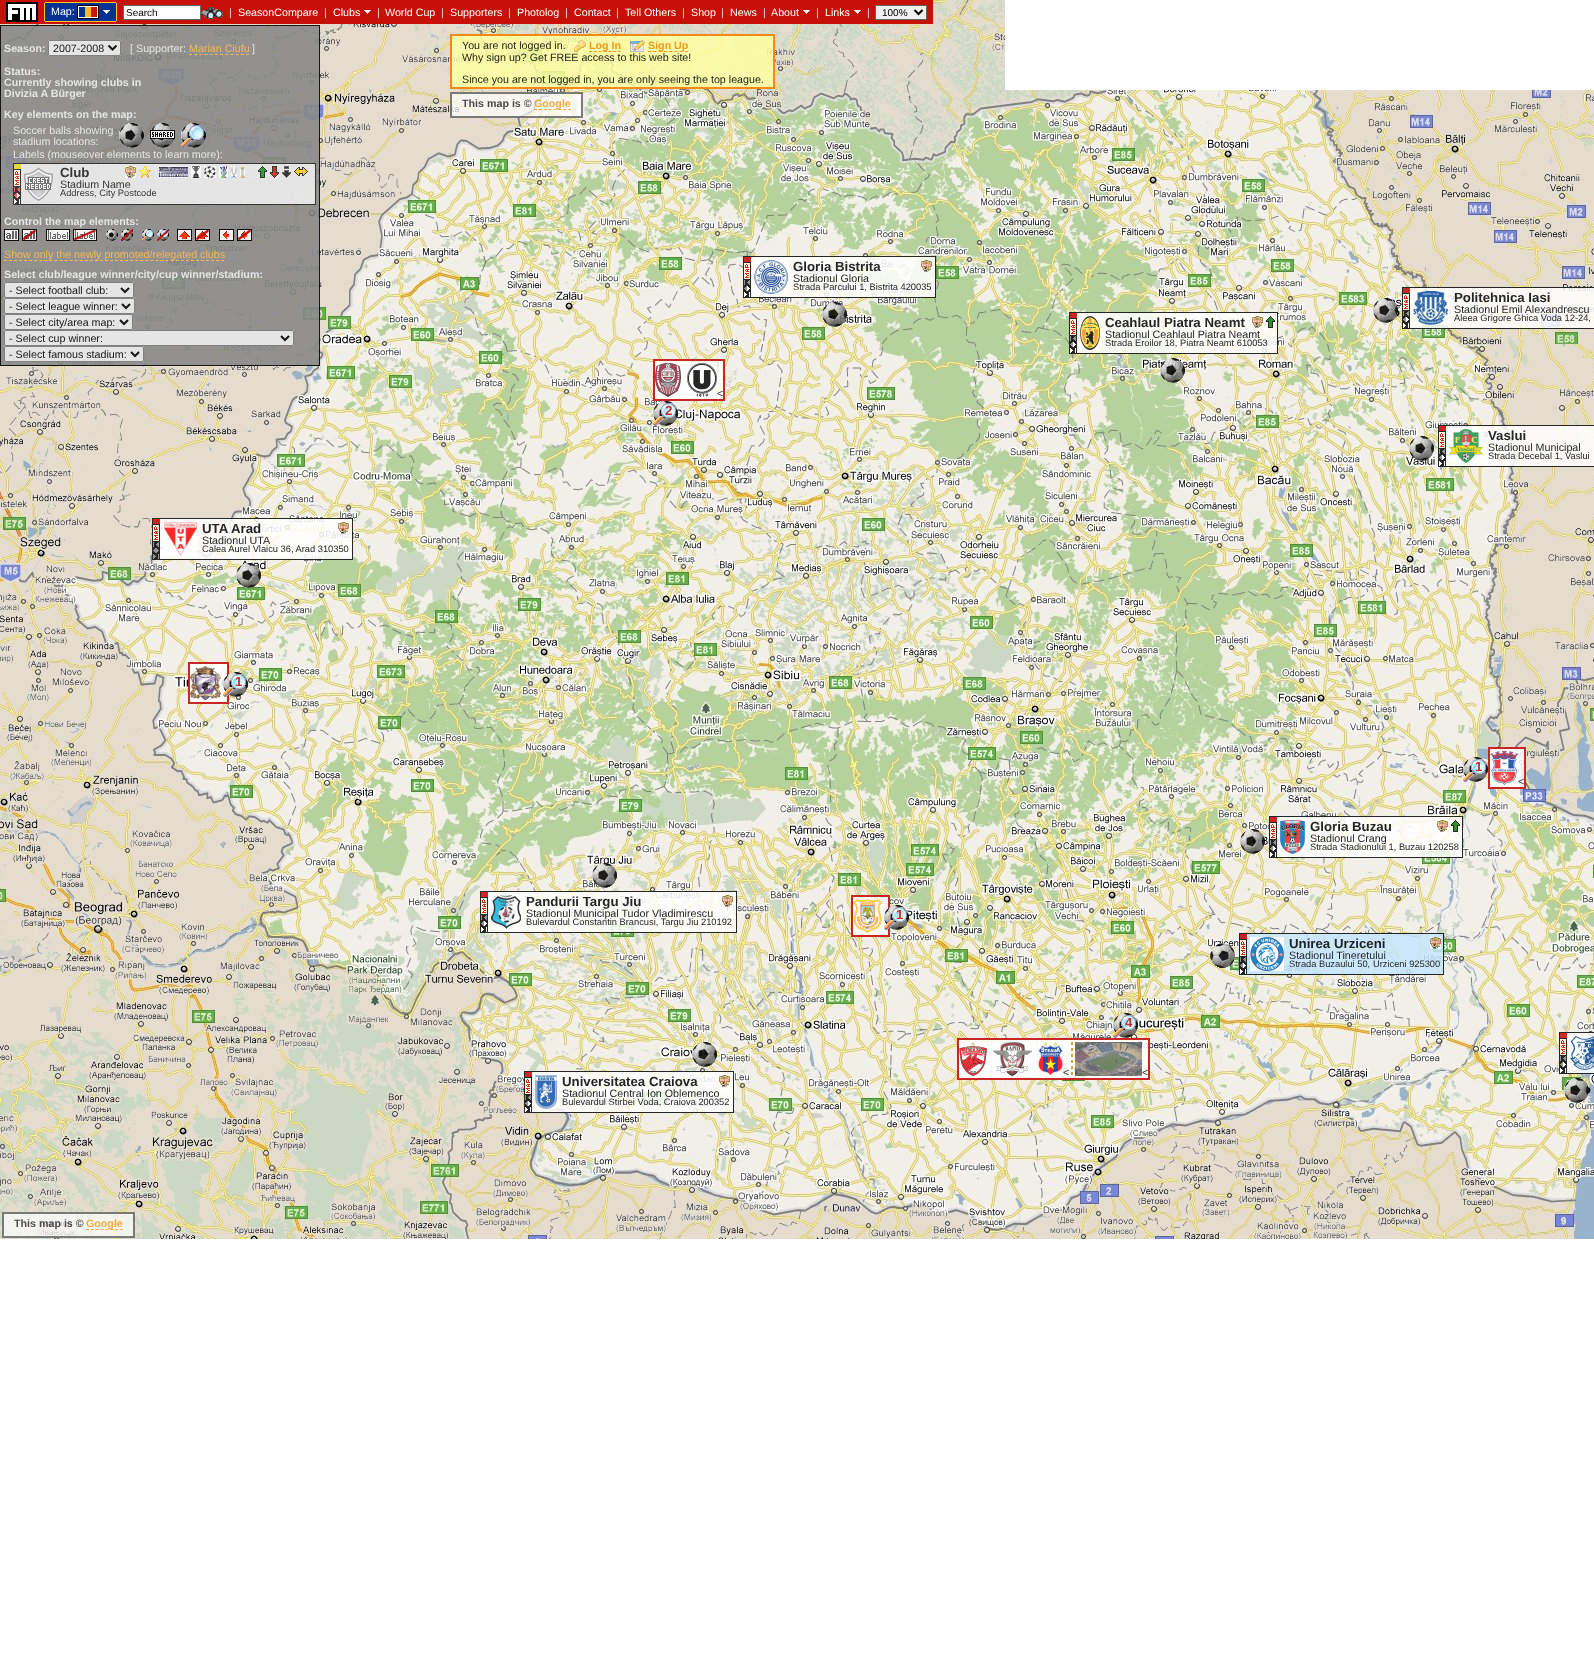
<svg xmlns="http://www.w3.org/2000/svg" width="1594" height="1680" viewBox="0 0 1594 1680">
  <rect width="100%" height="100%" fill="#ffffff"/>
  <image x="0" y="0" width="1594" height="1239" href="img10.png"/>
  <rect x="0" y="0" width="45" height="24" fill="#c61008"/>
  <image x="6" y="2" width="32" height="20" href="img1.png"/>
  <rect x="44" y="3" width="1" height="18" fill="#ffc621"/>
  <image x="45" y="0" width="71" height="24" href="img2.png"/>
  <text x="51" y="15" font-family="Liberation Sans" font-size="10.7" fill="#ffffff">Map:</text>
  <image x="77" y="5" width="22" height="14" href="img3.png"/>
  <image x="103" y="10" width="7" height="4" href="img4.png"/>
  <image x="116" y="0" width="1" height="24" href="img5.png"/>
  <rect x="117" y="0" width="816" height="24" fill="#c61008"/>
  <rect x="123.5" y="5.5" width="77" height="14" fill="#ffffff" stroke="#666666"/>
  <text x="126" y="16" font-family="Liberation Sans" font-size="10" fill="#000000">Search</text>
  <image x="201" y="7" width="22" height="12" href="img6.png"/>
  <text x="229" y="16" font-family="Liberation Sans" font-size="10.7" fill="#dddddd">|</text>
  <text x="238" y="16" font-family="Liberation Sans" font-size="10.7" fill="#ffffff">SeasonCompare</text>
  <text x="324" y="16" font-family="Liberation Sans" font-size="10.7" fill="#dddddd">|</text>
  <text x="333" y="16" font-family="Liberation Sans" font-size="10.7" fill="#ffffff">Clubs</text>
  <image x="364" y="10" width="7" height="4" href="img7.png"/>
  <text x="377" y="16" font-family="Liberation Sans" font-size="10.7" fill="#dddddd">|</text>
  <text x="385" y="16" font-family="Liberation Sans" font-size="10.7" fill="#ffffff">World Cup</text>
  <text x="441" y="16" font-family="Liberation Sans" font-size="10.7" fill="#dddddd">|</text>
  <text x="450" y="16" font-family="Liberation Sans" font-size="10.7" fill="#ffffff">Supporters</text>
  <text x="508" y="16" font-family="Liberation Sans" font-size="10.7" fill="#dddddd">|</text>
  <text x="517" y="16" font-family="Liberation Sans" font-size="10.7" fill="#ffffff">Photolog</text>
  <text x="565" y="16" font-family="Liberation Sans" font-size="10.7" fill="#dddddd">|</text>
  <text x="574" y="16" font-family="Liberation Sans" font-size="10.7" fill="#ffffff">Contact</text>
  <text x="616" y="16" font-family="Liberation Sans" font-size="10.7" fill="#dddddd">|</text>
  <text x="625" y="16" font-family="Liberation Sans" font-size="10.7" fill="#ffffff">Tell Others</text>
  <text x="682" y="16" font-family="Liberation Sans" font-size="10.7" fill="#dddddd">|</text>
  <text x="691" y="16" font-family="Liberation Sans" font-size="10.7" fill="#ffffff">Shop</text>
  <text x="721" y="16" font-family="Liberation Sans" font-size="10.7" fill="#dddddd">|</text>
  <text x="730" y="16" font-family="Liberation Sans" font-size="10.7" fill="#ffffff">News</text>
  <text x="763" y="16" font-family="Liberation Sans" font-size="10.7" fill="#dddddd">|</text>
  <text x="771" y="16" font-family="Liberation Sans" font-size="10.7" fill="#ffffff">About</text>
  <image x="803" y="10" width="7" height="4" href="img7.png"/>
  <text x="816" y="16" font-family="Liberation Sans" font-size="10.7" fill="#dddddd">|</text>
  <text x="825" y="16" font-family="Liberation Sans" font-size="10.7" fill="#ffffff">Links</text>
  <image x="854" y="10" width="7" height="4" href="img7.png"/>
  <text x="867" y="16" font-family="Liberation Sans" font-size="10.7" fill="#dddddd">|</text>
  <rect x="875.5" y="5.5" width="51" height="14" fill="#efefef" stroke="#666666"/>
  <path d="M914.5 10L918.5 14L922.5 10" fill="none" stroke="#000000" stroke-width="2"/>
  <text x="882" y="16" font-family="Liberation Sans" font-size="10" fill="#000000">100%</text>
  <rect x="1005" y="0" width="589" height="90" fill="#ffffff"/>
  <rect x="450" y="34" width="325" height="55" fill="#feffa3" fill-opacity="0.85"/>
  <rect x="451" y="35" width="323" height="53" fill="none" stroke="#f07700" stroke-opacity="0.85" stroke-width="2"/>
  <text x="462" y="49" font-family="Liberation Sans" font-size="10.7" fill="#252519">You are not logged in.</text>
  <image x="574" y="40" width="12" height="12" href="img8.png"/>
  <path d="M589 51.5H621" fill="none" stroke="#e68d00" stroke-opacity="0.85" stroke-dasharray="3 1.83"/>
  <text x="589" y="49" font-family="Liberation Sans" font-size="10.7" font-weight="bold" fill="#e99d19">Log In</text>
  <image x="630" y="40" width="15" height="12" href="img9.png"/>
  <path d="M648 51.5H688" fill="none" stroke="#e68d00" stroke-opacity="0.85" stroke-dasharray="3 2.29"/>
  <text x="648" y="49" font-family="Liberation Sans" font-size="10.7" font-weight="bold" fill="#e99d19">Sign Up</text>
  <text x="462" y="61" font-family="Liberation Sans" font-size="10.7" fill="#252519">Why sign up? Get FREE access to this web site!</text>
  <text x="462" y="83" font-family="Liberation Sans" font-size="10.7" fill="#252519">Since you are not logged in, you are only seeing the top league.</text>
  <rect x="0.5" y="25.5" width="319" height="340" fill="none" stroke="#000000" stroke-opacity="0.9"/>
  <rect x="1" y="26" width="318" height="339" fill="#888888" fill-opacity="0.9"/>
  <text x="4" y="52" font-family="Liberation Sans" font-size="10.7" font-weight="bold" fill="#e5e5e4">Season:</text>
  <rect x="48" y="40" width="73" height="16" rx="2" fill="#eeeeee" fill-opacity="0.9"/>
  <rect x="48.5" y="40.5" width="72" height="15" rx="1.5" fill="none" stroke="#767676" stroke-opacity="0.9"/>
  <path d="M108.5 45.5L112.5 49.5L116.5 45.5" fill="none" stroke="#171717" stroke-width="2"/>
  <text x="53" y="52" font-family="Liberation Sans" font-size="10.7" fill="#171717">2007-2008</text>
  <text x="130" y="52" font-family="Liberation Sans" font-size="10.7" fill="#e5e5e4">[</text>
  <text x="136" y="52" font-family="Liberation Sans" font-size="10.7" fill="#e5e5e4">Supporter:</text>
  <text x="189" y="52" font-family="Liberation Sans" font-size="10.7" fill="#f4b757">Marian Ciufu</text>
  <path d="M189 54.5H249" fill="none" stroke="#ffbb51" stroke-opacity="0.9" stroke-dasharray="3 2.18"/>
  <text x="252" y="52" font-family="Liberation Sans" font-size="10.7" fill="#e5e5e4">]</text>
  <text x="4" y="75" font-family="Liberation Sans" font-size="10.7" font-weight="bold" fill="#e5e5e4">Status:</text>
  <text x="4" y="86" font-family="Liberation Sans" font-size="10.7" font-weight="bold" fill="#e5e5e4">Currently showing clubs in</text>
  <text x="4" y="97" font-family="Liberation Sans" font-size="10.7" font-weight="bold" fill="#e5e5e4">Divizia A Bürger</text>
  <text x="4" y="118" font-family="Liberation Sans" font-size="10.7" font-weight="bold" fill="#e5e5e4">Key elements on the map:</text>
  <text x="13" y="134" font-family="Liberation Sans" font-size="10.7" fill="#e5e5e4">Soccer balls showing</text>
  <text x="13" y="145" font-family="Liberation Sans" font-size="10.7" fill="#e5e5e4">stadium locations:</text>
  <image x="119" y="123" width="25" height="25" href="img11.png"/>
  <image x="150" y="123" width="25" height="25" href="img12.png"/>
  <image x="181" y="123" width="25" height="25" href="img13.png"/>
  <text x="13" y="158" font-family="Liberation Sans" font-size="10.7" fill="#e5e5e4">Labels (mouseover elements to learn more):</text>
  <rect x="13" y="163" width="303" height="42" fill="#ffffff" fill-opacity="0.77"/>
  <rect x="13.5" y="163.5" width="302" height="41" fill="none" stroke="#000000" stroke-opacity="0.77"/>
  <rect x="14" y="164" width="7" height="5" fill="#e6d500" fill-opacity="0.76"/>
  <rect x="14" y="169" width="7" height="1" fill="#373737"/>
  <image x="14" y="170" width="7" height="17" href="img14.png"/>
  <image x="14" y="187" width="7" height="6" href="img15.png"/>
  <image x="14" y="193" width="3" height="6" href="img16.png"/>
  <image x="17" y="193" width="4" height="6" href="img17.png"/>
  <image x="14" y="199" width="7" height="5" href="img18.png"/>
  <image x="24" y="167" width="29" height="34" href="img19.png"/>
  <text x="60" y="177" font-family="Liberation Sans" font-size="13.25" font-weight="bold" fill="#363636">Club</text>
  <image x="125" y="166" width="11" height="12" href="img20.png"/>
  <image x="139" y="166" width="12" height="12" href="img21.png"/>
  <image x="159" y="166" width="29" height="12" href="img22.png"/>
  <image x="191" y="166" width="10" height="12" href="img23.png"/>
  <image x="204" y="166" width="12" height="12" href="img24.png"/>
  <image x="219" y="166" width="9" height="12" href="img25.png"/>
  <image x="231" y="166" width="6" height="12" href="img26.png"/>
  <image x="240" y="166" width="5" height="12" href="img27.png"/>
  <image x="258" y="166" width="9" height="12" href="img28.png"/>
  <image x="270" y="166" width="9" height="12" href="img29.png"/>
  <image x="282" y="166" width="9" height="12" href="img30.png"/>
  <image x="294" y="167" width="14" height="9" href="img31.png"/>
  <text x="60" y="188" font-family="Liberation Sans" font-size="10.7" fill="#363636">Stadium Name</text>
  <text x="60" y="196" font-family="Liberation Sans" font-size="9.3" fill="#363636">Address, City Postcode</text>
  <text x="4" y="225" font-family="Liberation Sans" font-size="10.7" font-weight="bold" fill="#e5e5e4">Control the map elements:</text>
  <image x="4" y="229" width="15" height="12" href="img32.png"/>
  <image x="22" y="229" width="15" height="12" href="img33.png"/>
  <image x="46" y="229" width="24" height="12" href="img34.png"/>
  <image x="73" y="229" width="24" height="12" href="img35.png"/>
  <image x="106" y="229" width="12" height="12" href="img36.png"/>
  <image x="121" y="229" width="12" height="12" href="img37.png"/>
  <image x="142" y="229" width="12" height="12" href="img38.png"/>
  <image x="157" y="229" width="12" height="12" href="img39.png"/>
  <image x="177" y="229" width="15" height="12" href="img40.png"/>
  <image x="195" y="229" width="15" height="12" href="img41.png"/>
  <image x="219" y="229" width="15" height="12" href="img42.png"/>
  <image x="237" y="229" width="15" height="12" href="img43.png"/>
  <path d="M4 260.5H224" fill="none" stroke="#ffbb51" stroke-opacity="0.9" stroke-dasharray="3 2.05"/>
  <text x="4" y="258" font-family="Liberation Sans" font-size="10.7" fill="#f4b757">Show only the newly promoted/relegated clubs</text>
  <text x="4" y="278" font-family="Liberation Sans" font-size="10.7" font-weight="bold" fill="#e5e5e4">Select club/league winner/city/cup winner/stadium:</text>
  <rect x="4" y="282" width="130" height="16" rx="2" fill="#eeeeee" fill-opacity="0.9"/>
  <rect x="4.5" y="282.5" width="129" height="15" rx="1.5" fill="none" stroke="#767676" stroke-opacity="0.9"/>
  <path d="M121 288L125 292L129 288" fill="none" stroke="#171717" stroke-width="2"/>
  <text x="9" y="294" font-family="Liberation Sans" font-size="10.7" fill="#171717">- Select football club:</text>
  <rect x="4" y="298" width="131" height="16" rx="2" fill="#eeeeee" fill-opacity="0.9"/>
  <rect x="4.5" y="298.5" width="130" height="15" rx="1.5" fill="none" stroke="#767676" stroke-opacity="0.9"/>
  <path d="M122 304L126 308L130 304" fill="none" stroke="#171717" stroke-width="2"/>
  <text x="9" y="310" font-family="Liberation Sans" font-size="10.7" fill="#171717">- Select league winner:</text>
  <rect x="4" y="314" width="129" height="16" rx="2" fill="#eeeeee" fill-opacity="0.9"/>
  <rect x="4.5" y="314.5" width="128" height="15" rx="1.5" fill="none" stroke="#767676" stroke-opacity="0.9"/>
  <path d="M120 320L124 324L128 320" fill="none" stroke="#171614" stroke-width="2"/>
  <text x="9" y="326" font-family="Liberation Sans" font-size="10.7" fill="#171717">- Select city/area map:</text>
  <rect x="4" y="330" width="290" height="16" rx="2" fill="#eeeeee" fill-opacity="0.9"/>
  <rect x="4.5" y="330.5" width="289" height="15" rx="1.5" fill="none" stroke="#767676" stroke-opacity="0.9"/>
  <path d="M281 336L285 340L289 336" fill="none" stroke="#171615" stroke-width="2"/>
  <text x="9" y="342" font-family="Liberation Sans" font-size="10.7" fill="#171717">- Select cup winner:</text>
  <rect x="4" y="346" width="140" height="16" rx="2" fill="#eeeeee" fill-opacity="0.9"/>
  <rect x="4.5" y="346.5" width="139" height="15" rx="1.5" fill="none" stroke="#767676" stroke-opacity="0.9"/>
  <path d="M131 352L135 356L139 352" fill="none" stroke="#171717" stroke-width="2"/>
  <text x="9" y="358" font-family="Liberation Sans" font-size="10.7" fill="#171717">- Select famous stadium:</text>
  <rect x="743" y="256" width="193" height="42" fill="#ffffff" fill-opacity="0.85"/>
  <rect x="743.5" y="256.5" width="192" height="41" fill="none" stroke="#000000" stroke-opacity="0.85"/>
  <rect x="744" y="257" width="7" height="5" fill="#c50000" fill-opacity="0.85"/>
  <rect x="744" y="262" width="7" height="1" fill="#262626"/>
  <image x="744" y="263" width="7" height="17" href="img44.png"/>
  <image x="744" y="280" width="7" height="6" href="img45.png"/>
  <image x="744" y="286" width="3" height="6" href="img46.png"/>
  <image x="747" y="286" width="4" height="6" href="img47.png"/>
  <image x="744" y="292" width="7" height="5" href="img48.png"/>
  <image x="754" y="260" width="34" height="34" href="img49.png"/>
  <text x="793" y="271" font-family="Liberation Sans" font-size="13.25" font-weight="bold" fill="#252525">Gloria Bistrita</text>
  <image x="921" y="260" width="11" height="12" href="img50.png"/>
  <text x="793" y="282" font-family="Liberation Sans" font-size="10.7" fill="#252525">Stadionul Gloria</text>
  <text x="793" y="290" font-family="Liberation Sans" font-size="9.3" fill="#252525">Strada Parcului 1, Bistrita 420035</text>
  <image x="822" y="302" width="25" height="25" href="img51.png"/>
  <image x="1373" y="298" width="25" height="25" href="img52.png"/>
  <rect x="1402" y="287" width="192" height="42" fill="#ffffff" fill-opacity="0.85"/>
  <rect x="1402.5" y="287.5" width="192" height="41" fill="none" stroke="#000000" stroke-opacity="0.85"/>
  <rect x="1403" y="288" width="7" height="5" fill="#c50000" fill-opacity="0.85"/>
  <rect x="1403" y="293" width="7" height="1" fill="#000000" fill-opacity="0.85"/>
  <image x="1403" y="294" width="7" height="17" href="img53.png"/>
  <image x="1403" y="311" width="7" height="6" href="img54.png"/>
  <image x="1403" y="317" width="3" height="6" href="img55.png"/>
  <image x="1406" y="317" width="4" height="6" href="img56.png"/>
  <image x="1403" y="323" width="7" height="5" href="img57.png"/>
  <image x="1413" y="291" width="36" height="34" href="img58.png"/>
  <text x="1454" y="302" font-family="Liberation Sans" font-size="13.25" font-weight="bold" fill="#252525">Politehnica Iasi</text>
  <text x="1454" y="313" font-family="Liberation Sans" font-size="10.7" fill="#252525">Stadionul Emil Alexandrescu</text>
  <text x="1454" y="321" font-family="Liberation Sans" font-size="9.3" fill="#252525">Aleea Grigore Ghica Voda 12-24,</text>
  <rect x="1069" y="312" width="209" height="42" fill="#ffffff" fill-opacity="0.85"/>
  <rect x="1069.5" y="312.5" width="208" height="41" fill="none" stroke="#000000" stroke-opacity="0.85"/>
  <rect x="1070" y="313" width="7" height="5" fill="#c50000" fill-opacity="0.85"/>
  <rect x="1070" y="318" width="7" height="1" fill="#000000" fill-opacity="0.85"/>
  <image x="1070" y="319" width="7" height="17" href="img59.png"/>
  <image x="1070" y="336" width="7" height="6" href="img60.png"/>
  <image x="1070" y="342" width="3" height="6" href="img61.png"/>
  <image x="1073" y="342" width="4" height="6" href="img62.png"/>
  <image x="1070" y="348" width="7" height="5" href="img63.png"/>
  <image x="1080" y="316" width="20" height="34" href="img64.png"/>
  <text x="1105" y="327" font-family="Liberation Sans" font-size="13.25" font-weight="bold" fill="#252525">Ceahlaul Piatra Neamt</text>
  <image x="1252" y="316" width="11" height="12" href="img65.png"/>
  <image x="1266" y="316" width="9" height="12" href="img66.png"/>
  <text x="1105" y="338" font-family="Liberation Sans" font-size="10.7" fill="#252525">Stadionul Ceahlaul Piatra Neamt</text>
  <text x="1105" y="346" font-family="Liberation Sans" font-size="9.3" fill="#252525">Strada Eroilor 18, Piatra Neamt 610053</text>
  <image x="1160" y="358" width="25" height="25" href="img67.png"/>
  <rect x="653" y="359" width="72" height="42" fill="#ffffff" fill-opacity="0.85"/>
  <rect x="654" y="360" width="70" height="40" fill="none" stroke="#c00000" stroke-opacity="0.85" stroke-width="2"/>
  <image x="655" y="363" width="26" height="34" href="img68.png"/>
  <rect x="681" y="363" width="4" height="33" fill="#ffffff" fill-opacity="0.85"/>
  <image x="687" y="363" width="30" height="34" href="img69.png"/>
  <text x="717" y="397" font-family="Liberation Sans" font-size="10.7" fill="#252525">&lt;</text>
  <image x="653" y="401" width="25" height="25" href="img70.png"/>
  <text x="665" y="415" font-family="Liberation Sans" font-size="13.25" font-weight="bold" fill="#c23031">2</text>
  <image x="1409" y="436" width="25" height="25" href="img71.png"/>
  <rect x="1438" y="425" width="156" height="42" fill="#ffffff" fill-opacity="0.85"/>
  <rect x="1438.5" y="425.5" width="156" height="41" fill="none" stroke="#000000" stroke-opacity="0.85"/>
  <rect x="1439" y="426" width="7" height="5" fill="#c50000" fill-opacity="0.85"/>
  <rect x="1439" y="431" width="7" height="1" fill="#262626"/>
  <image x="1439" y="432" width="7" height="17" href="img72.png"/>
  <image x="1439" y="449" width="7" height="6" href="img73.png"/>
  <image x="1439" y="455" width="3" height="6" href="img74.png"/>
  <image x="1442" y="455" width="4" height="6" href="img75.png"/>
  <image x="1440" y="461" width="6" height="5" href="img76.png"/>
  <image x="1449" y="429" width="34" height="34" href="img77.png"/>
  <text x="1488" y="440" font-family="Liberation Sans" font-size="13.25" font-weight="bold" fill="#252525">Vaslui</text>
  <text x="1488" y="451" font-family="Liberation Sans" font-size="10.7" fill="#252525">Stadionul Municipal</text>
  <text x="1488" y="459" font-family="Liberation Sans" font-size="9.3" fill="#252525">Strada Decebal 1, Vaslui</text>
  <rect x="152" y="518" width="201" height="42" fill="#ffffff" fill-opacity="0.85"/>
  <rect x="152.5" y="518.5" width="200" height="41" fill="none" stroke="#000000" stroke-opacity="0.85"/>
  <rect x="153" y="519" width="7" height="5" fill="#cd2525"/>
  <rect x="153" y="524" width="7" height="1" fill="#262525"/>
  <image x="153" y="525" width="7" height="17" href="img78.png"/>
  <image x="153" y="542" width="7" height="6" href="img79.png"/>
  <image x="153" y="548" width="3" height="6" href="img80.png"/>
  <image x="156" y="548" width="4" height="6" href="img81.png"/>
  <image x="153" y="554" width="7" height="5" href="img82.png"/>
  <image x="163" y="522" width="34" height="34" href="img83.png"/>
  <text x="202" y="533" font-family="Liberation Sans" font-size="13.25" font-weight="bold" fill="#252525">UTA Arad</text>
  <image x="338" y="522" width="11" height="12" href="img84.png"/>
  <text x="202" y="544" font-family="Liberation Sans" font-size="10.7" fill="#252525">Stadionul UTA</text>
  <text x="202" y="552" font-family="Liberation Sans" font-size="9.3" fill="#252525">Calea Aurel Vlaicu 36, Arad 310350</text>
  <image x="236" y="563" width="25" height="25" href="img85.png"/>
  <rect x="188" y="662" width="41" height="42" fill="#ffffff" fill-opacity="0.85"/>
  <rect x="189" y="663" width="39" height="40" fill="none" stroke="#c00000" stroke-opacity="0.85" stroke-width="2"/>
  <image x="190" y="666" width="31" height="34" href="img86.png"/>
  <image x="223" y="672" width="25" height="25" href="img87.png"/>
  <text x="235" y="686" font-family="Liberation Sans" font-size="13.25" font-weight="bold" fill="#c23031">1</text>
  <image x="1463" y="757" width="25" height="25" href="img88.png"/>
  <text x="1475" y="771" font-family="Liberation Sans" font-size="13.25" font-weight="bold" fill="#c23031">1</text>
  <rect x="1488" y="747" width="38" height="42" fill="#ffffff" fill-opacity="0.85"/>
  <rect x="1489" y="748" width="36" height="40" fill="none" stroke="#c00000" stroke-opacity="0.85" stroke-width="2"/>
  <image x="1490" y="751" width="28" height="34" href="img89.png"/>
  <text x="1518" y="785" font-family="Liberation Sans" font-size="10.7" fill="#252525">&lt;</text>
  <image x="1240" y="829" width="25" height="25" href="img90.png"/>
  <rect x="1269" y="816" width="194" height="42" fill="#ffffff" fill-opacity="0.85"/>
  <rect x="1269.5" y="816.5" width="193" height="41" fill="none" stroke="#000000" stroke-opacity="0.85"/>
  <rect x="1270" y="817" width="7" height="5" fill="#c50000" fill-opacity="0.85"/>
  <rect x="1270" y="822" width="7" height="1" fill="#000000" fill-opacity="0.85"/>
  <image x="1270" y="823" width="7" height="17" href="img91.png"/>
  <image x="1270" y="840" width="7" height="6" href="img92.png"/>
  <image x="1270" y="846" width="3" height="6" href="img93.png"/>
  <image x="1273" y="846" width="4" height="6" href="img94.png"/>
  <image x="1270" y="852" width="7" height="5" href="img95.png"/>
  <image x="1280" y="820" width="25" height="34" href="img96.png"/>
  <text x="1310" y="831" font-family="Liberation Sans" font-size="13.25" font-weight="bold" fill="#252525">Gloria Buzau</text>
  <image x="1437" y="820" width="11" height="12" href="img97.png"/>
  <image x="1451" y="820" width="9" height="12" href="img98.png"/>
  <text x="1310" y="842" font-family="Liberation Sans" font-size="10.7" fill="#252525">Stadionul Crang</text>
  <text x="1310" y="850" font-family="Liberation Sans" font-size="9.3" fill="#252525">Strada Stadionului 1, Buzau 120258</text>
  <image x="592" y="863" width="25" height="25" href="img99.png"/>
  <rect x="480" y="891" width="257" height="42" fill="#ffffff" fill-opacity="0.85"/>
  <rect x="480.5" y="891.5" width="256" height="41" fill="none" stroke="#000000" stroke-opacity="0.85"/>
  <rect x="481" y="892" width="7" height="5" fill="#cd2626"/>
  <rect x="481" y="897" width="7" height="1" fill="#000000" fill-opacity="0.85"/>
  <image x="481" y="898" width="7" height="17" href="img100.png"/>
  <image x="481" y="915" width="7" height="6" href="img101.png"/>
  <image x="481" y="921" width="3" height="6" href="img102.png"/>
  <image x="484" y="921" width="4" height="6" href="img103.png"/>
  <image x="481" y="927" width="7" height="5" href="img104.png"/>
  <image x="491" y="895" width="30" height="34" href="img105.png"/>
  <text x="526" y="906" font-family="Liberation Sans" font-size="13.25" font-weight="bold" fill="#252525">Pandurii Targu Jiu</text>
  <image x="722" y="895" width="11" height="12" href="img106.png"/>
  <text x="526" y="917" font-family="Liberation Sans" font-size="10.7" fill="#252525">Stadionul Municipal Tudor Vladimirescu</text>
  <text x="526" y="925" font-family="Liberation Sans" font-size="9.3" fill="#252525">Bulevardul Constantin Brancusi, Targu Jiu 210192</text>
  <rect x="851" y="895" width="39" height="42" fill="#ffffff" fill-opacity="0.85"/>
  <rect x="852" y="896" width="37" height="40" fill="none" stroke="#c00000" stroke-opacity="0.85" stroke-width="2"/>
  <image x="853" y="899" width="29" height="34" href="img107.png"/>
  <image x="884" y="905" width="25" height="25" href="img108.png"/>
  <text x="896" y="919" font-family="Liberation Sans" font-size="13.25" font-weight="bold" fill="#c23031">1</text>
  <image x="1210" y="943" width="25" height="25" href="img109.png"/>
  <rect x="1239" y="933" width="205" height="42" fill="#c5e6ff" fill-opacity="0.85"/>
  <rect x="1239.5" y="933.5" width="204" height="41" fill="none" stroke="#000000" stroke-opacity="0.85"/>
  <rect x="1240" y="934" width="7" height="5" fill="#c50000" fill-opacity="0.85"/>
  <rect x="1240" y="939" width="7" height="1" fill="#000000" fill-opacity="0.85"/>
  <image x="1240" y="940" width="7" height="17" href="img110.png"/>
  <image x="1240" y="957" width="7" height="6" href="img111.png"/>
  <image x="1240" y="963" width="3" height="6" href="img112.png"/>
  <image x="1243" y="963" width="4" height="6" href="img113.png"/>
  <image x="1240" y="969" width="7" height="5" href="img114.png"/>
  <image x="1250" y="937" width="34" height="34" href="img115.png"/>
  <text x="1289" y="948" font-family="Liberation Sans" font-size="13.25" font-weight="bold" fill="#1e2225">Unirea Urziceni</text>
  <image x="1430" y="937" width="11" height="12" href="img116.png"/>
  <text x="1289" y="959" font-family="Liberation Sans" font-size="10.7" fill="#1e2225">Stadionul Tineretului</text>
  <text x="1289" y="967" font-family="Liberation Sans" font-size="9.3" fill="#1e2225">Strada Buzaului 50,</text>
  <text x="1373" y="967" font-family="Liberation Sans" font-size="9.3" fill="#1e2225">Urziceni 925300</text>
  <image x="1113" y="1013" width="25" height="25" href="img117.png"/>
  <text x="1125" y="1027" font-family="Liberation Sans" font-size="13.25" font-weight="bold" fill="#c23031">4</text>
  <image x="692" y="1042" width="25" height="25" href="img118.png"/>
  <rect x="1559" y="1032" width="35" height="42" fill="#ffffff" fill-opacity="0.85"/>
  <rect x="1559.5" y="1032.5" width="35" height="41" fill="none" stroke="#000000" stroke-opacity="0.85"/>
  <rect x="1560" y="1033" width="7" height="5" fill="#c50000" fill-opacity="0.85"/>
  <rect x="1560" y="1038" width="7" height="1" fill="#000000" fill-opacity="0.85"/>
  <image x="1560" y="1039" width="7" height="17" href="img119.png"/>
  <image x="1560" y="1056" width="7" height="6" href="img120.png"/>
  <image x="1560" y="1062" width="3" height="6" href="img121.png"/>
  <image x="1563" y="1062" width="4" height="6" href="img122.png"/>
  <image x="1560" y="1068" width="7" height="5" href="img123.png"/>
  <image x="1570" y="1036" width="24" height="34" href="img124.png"/>
  <rect x="957" y="1038" width="193" height="42" fill="#ffffff" fill-opacity="0.85"/>
  <rect x="958" y="1039" width="191" height="40" fill="none" stroke="#c00000" stroke-opacity="0.85" stroke-width="2"/>
  <image x="959" y="1042" width="28" height="34" href="img125.png"/>
  <rect x="987" y="1042" width="4" height="34" fill="#ffffff" fill-opacity="0.85"/>
  <image x="993" y="1042" width="39" height="34" href="img126.png"/>
  <rect x="1032" y="1042" width="4" height="34" fill="#ffffff" fill-opacity="0.85"/>
  <image x="1038" y="1042" width="25" height="34" href="img127.png"/>
  <text x="1063" y="1076" font-family="Liberation Sans" font-size="10.7" fill="#252525">&lt;</text>
  <image x="1069" y="1042" width="4" height="34" href="img128.png"/>
  <image x="1075" y="1042" width="67" height="34" href="img129.png"/>
  <text x="1142" y="1076" font-family="Liberation Sans" font-size="10.7" fill="#252525">&lt;</text>
  <rect x="524" y="1071" width="210" height="42" fill="#ffffff" fill-opacity="0.85"/>
  <rect x="524.5" y="1071.5" width="209" height="41" fill="none" stroke="#000000" stroke-opacity="0.85"/>
  <rect x="525" y="1072" width="7" height="5" fill="#c50000" fill-opacity="0.85"/>
  <rect x="525" y="1077" width="7" height="1" fill="#000000" fill-opacity="0.85"/>
  <image x="525" y="1078" width="7" height="17" href="img130.png"/>
  <image x="525" y="1095" width="7" height="6" href="img131.png"/>
  <image x="525" y="1101" width="3" height="6" href="img132.png"/>
  <image x="528" y="1101" width="4" height="6" href="img133.png"/>
  <image x="525" y="1107" width="7" height="5" href="img134.png"/>
  <image x="535" y="1075" width="22" height="34" href="img135.png"/>
  <text x="562" y="1086" font-family="Liberation Sans" font-size="13.25" font-weight="bold" fill="#252525">Universitatea Craiova</text>
  <image x="719" y="1075" width="11" height="12" href="img136.png"/>
  <text x="562" y="1097" font-family="Liberation Sans" font-size="10.7" fill="#252525">Stadionul Central Ion Oblemenco</text>
  <text x="562" y="1105" font-family="Liberation Sans" font-size="9.3" fill="#252525">Bulevardul Stirbei Voda, Craiova 200352</text>
  <image x="1564" y="1078" width="25" height="25" href="img137.png"/>
  <rect x="450" y="92" width="133" height="26" fill="#ffffff" fill-opacity="0.7"/>
  <rect x="451" y="93" width="131" height="24" fill="none" stroke="#444444" stroke-opacity="0.7" stroke-width="2"/>
  <text x="462" y="107" font-family="Liberation Sans" font-size="10.7" font-weight="bold" fill="#4a4948">This map is ©</text>
  <path d="M534 109.5H571" fill="none" stroke="#e68d00" stroke-opacity="0.7" stroke-dasharray="3 1.86"/>
  <text x="534" y="107" font-family="Liberation Sans" font-size="10.7" font-weight="bold" fill="#ebac48">Google</text>
  <rect x="2" y="1212" width="133" height="26" fill="#ffffff" fill-opacity="0.7"/>
  <rect x="3" y="1213" width="131" height="24" fill="none" stroke="#444444" stroke-opacity="0.7" stroke-width="2"/>
  <text x="14" y="1227" font-family="Liberation Sans" font-size="10.7" font-weight="bold" fill="#4a4948">This map is ©</text>
  <path d="M86 1229.5H123" fill="none" stroke="#e68d00" stroke-opacity="0.7" stroke-dasharray="3 1.86"/>
  <text x="86" y="1227" font-family="Liberation Sans" font-size="10.7" font-weight="bold" fill="#ebac48">Google</text>
</svg>
